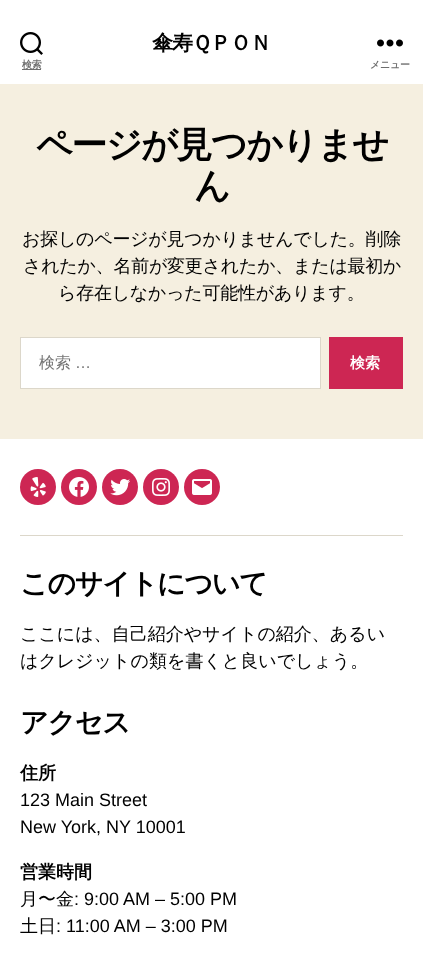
<svg xmlns="http://www.w3.org/2000/svg" width="423" height="966" viewBox="0 0 423 966">
  <rect width="100%" height="100%" fill="#f5efe0"/>
  <rect x="0" y="0" width="423" height="84" fill="#ffffff"/>
  <text x="152" y="50" font-family="WenQuanYi Zen Hei" font-size="21" font-weight="bold" letter-spacing="-1" fill="#000000">傘寿ＱＰＯＮ</text>
  <image x="20" y="32" width="23" height="23" href="img1.png"/>
  <rect x="22" y="69" width="19" height="1" fill="#6d6d6d"/>
  <text x="22" y="68" font-family="WenQuanYi Zen Hei" font-size="10" font-weight="bold" letter-spacing="-0.25" fill="#6d6d6d">検索</text>
  <image x="377" y="39" width="26" height="8" href="img2.png"/>
  <text x="370" y="68" font-family="WenQuanYi Zen Hei" font-size="10" font-weight="bold" letter-spacing="-0.25" fill="#6d6d6d">メニュー</text>
  <text x="36" y="157" font-family="WenQuanYi Zen Hei" font-size="36" font-weight="bold" letter-spacing="-1.5" fill="#000000">ページが見つかりませ</text>
  <text x="194" y="198" font-family="WenQuanYi Zen Hei" font-size="36" font-weight="bold" letter-spacing="-1.5" fill="#000000">ん</text>
  <text x="22" y="245" font-family="WenQuanYi Zen Hei" font-size="18" font-weight="500" letter-spacing="-0.25" fill="#000000">お探しのページが見つかりませんでした。削除</text>
  <text x="23" y="272" font-family="WenQuanYi Zen Hei" font-size="18" font-weight="500" letter-spacing="-0.25" fill="#000000">されたか、名前が変更されたか、または最初か</text>
  <text x="58" y="299" font-family="WenQuanYi Zen Hei" font-size="18" font-weight="500" letter-spacing="-0.25" fill="#000000">ら存在しなかった可能性があります。</text>
  <rect x="20.5" y="337.5" width="300" height="51" fill="#ffffff" stroke="#dcd7ca"/>
  <text x="39" y="368" font-family="WenQuanYi Zen Hei" font-size="16" font-weight="500" fill="#757575">検索</text>
  <text x="75" y="368" font-family="Liberation Sans" font-size="16" fill="#757575">…</text>
  <rect x="329" y="337" width="74" height="52" fill="#cd2653"/>
  <text x="350" y="368" font-family="WenQuanYi Zen Hei" font-size="15" font-weight="bold" fill="#ffffff">検索</text>
  <rect x="0" y="439" width="423" height="527" fill="#ffffff"/>
  <rect x="20" y="535" width="383" height="1" fill="#dcd7ca"/>
  <circle cx="38" cy="487" r="18" fill="#cd2653"/>
  <image x="30" y="477" width="16" height="20" href="img3.png"/>
  <circle cx="79" cy="487" r="18" fill="#cd2653"/>
  <image x="69" y="477" width="20" height="20" href="img4.png"/>
  <circle cx="120" cy="487" r="18" fill="#cd2653"/>
  <image x="110" y="479" width="20" height="17" href="img5.png"/>
  <circle cx="161" cy="487" r="18" fill="#cd2653"/>
  <image x="152" y="478" width="18" height="18" href="img6.png"/>
  <circle cx="202" cy="487" r="18" fill="#cd2653"/>
  <image x="192" y="479" width="20" height="16" href="img7.png"/>
  <text x="20" y="593" font-family="WenQuanYi Zen Hei" font-size="28" font-weight="bold" letter-spacing="-1.25" fill="#000000">このサイトについて</text>
  <text x="20" y="640" font-family="WenQuanYi Zen Hei" font-size="18" font-weight="500" fill="#000000">ここには、自己紹介やサイトの紹介、あるい</text>
  <text x="20" y="667" font-family="WenQuanYi Zen Hei" font-size="18" font-weight="500" fill="#000000">はクレジットの類を書くと良いでしょう。</text>
  <text x="20" y="732" font-family="WenQuanYi Zen Hei" font-size="28" font-weight="bold" letter-spacing="-1.25" fill="#000000">アクセス</text>
  <text x="20" y="779" font-family="WenQuanYi Zen Hei" font-size="18" font-weight="bold" fill="#000000">住所</text>
  <text x="20" y="806" font-family="Liberation Sans" font-size="18" fill="#000000">123 Main Street</text>
  <text x="20" y="833" font-family="Liberation Sans" font-size="18" fill="#000000">New York, NY 10001</text>
  <text x="20" y="878" font-family="WenQuanYi Zen Hei" font-size="18" font-weight="bold" fill="#000000">営業時間</text>
  <text x="20" y="905" font-family="WenQuanYi Zen Hei" font-size="18" font-weight="500" fill="#000000">月〜金</text>
  <text x="74" y="905" font-family="Liberation Sans" font-size="18" fill="#000000">: 9:00 AM – 5:00 PM</text>
  <text x="20" y="932" font-family="WenQuanYi Zen Hei" font-size="18" font-weight="500" fill="#000000">土日</text>
  <text x="56" y="932" font-family="Liberation Sans" font-size="18" fill="#000000">: 11:00 AM – 3:00 PM</text>
</svg>
